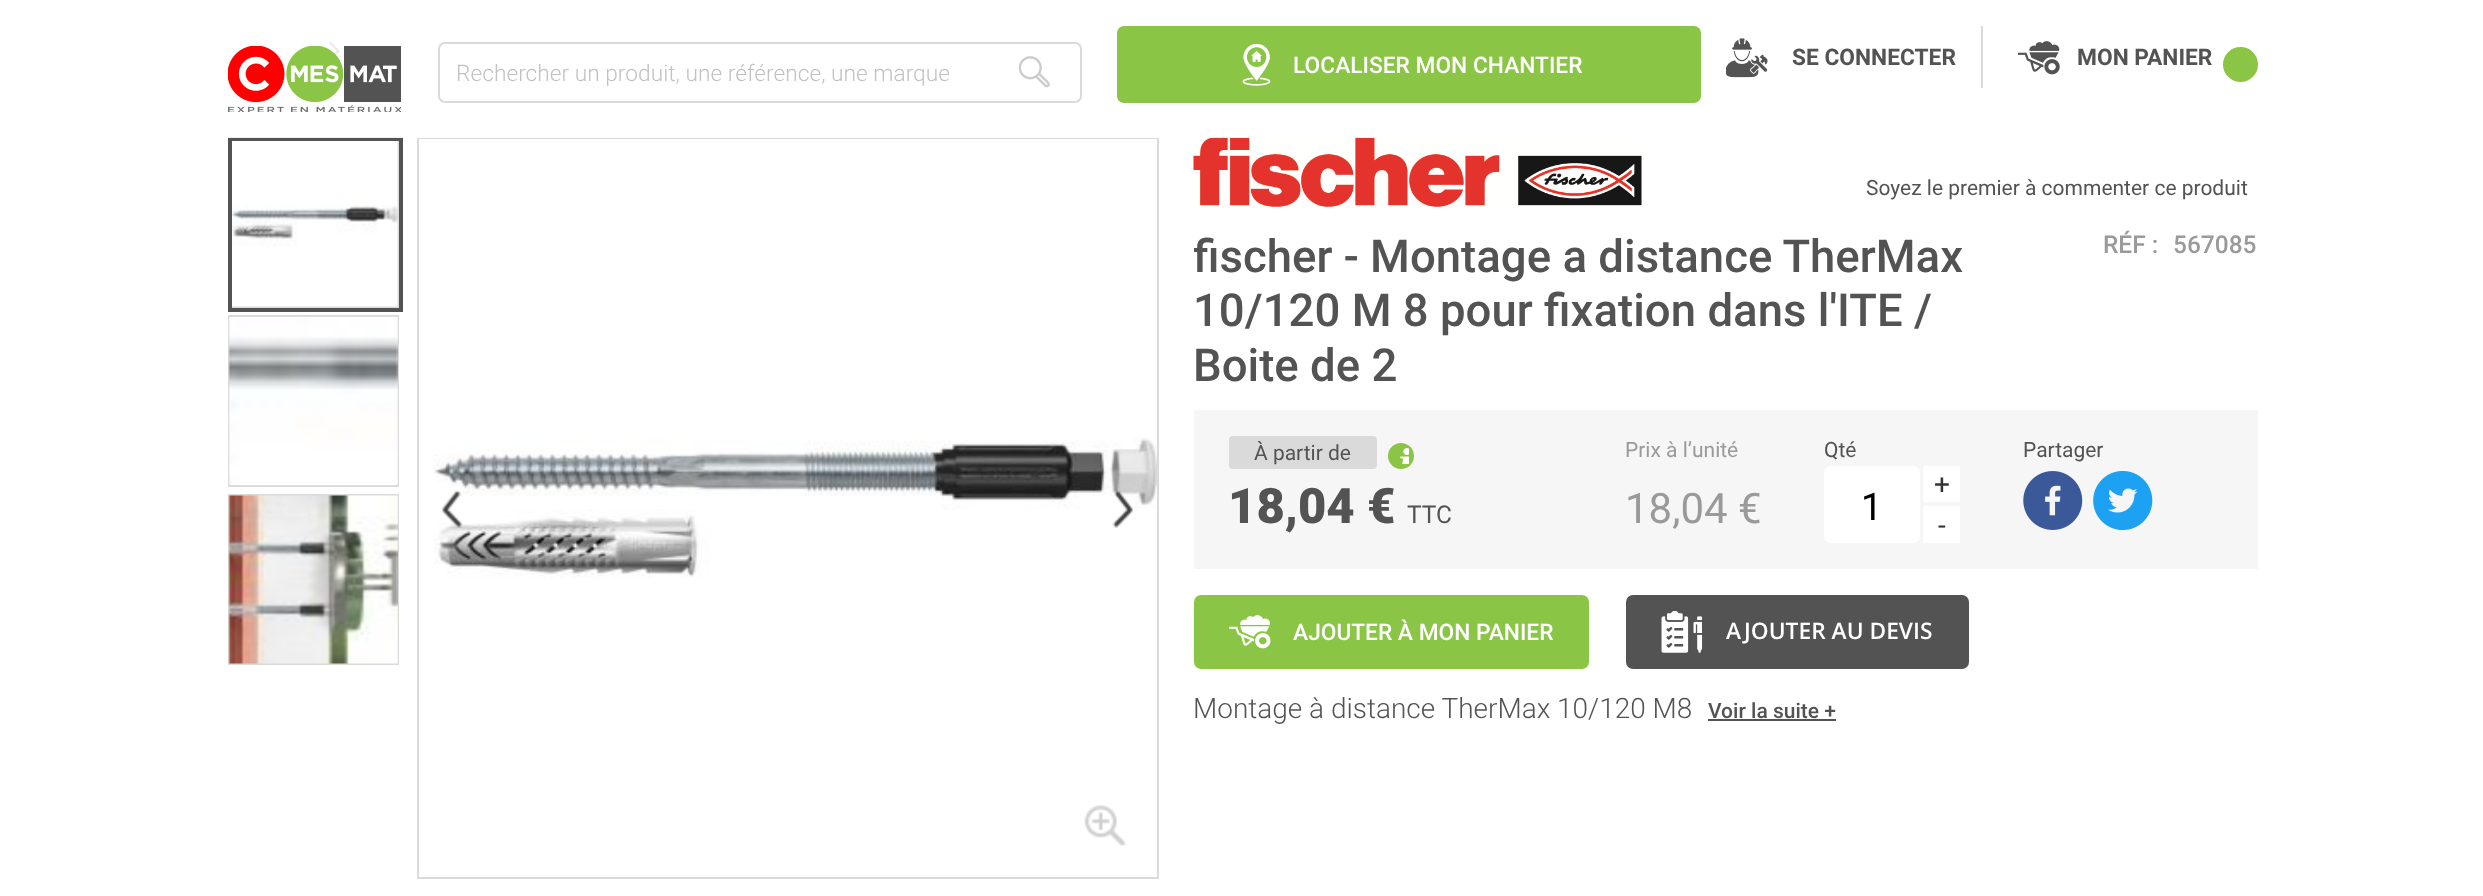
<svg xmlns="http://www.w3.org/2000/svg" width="2483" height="896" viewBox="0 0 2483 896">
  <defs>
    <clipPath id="clip1"><rect x="1194" y="228" width="850" height="182"/></clipPath>
  </defs>
  <rect width="100%" height="100%" fill="#ffffff"/>
  <path d="M340 51L330.5 41.5L329 43L336.5 51L328.5 59L330.5 60.5Z" fill="#353535"/>
  <rect x="229" y="138" width="169" height="169" fill="none" stroke="#dadada" stroke-width="2"/>
  <image x="232" y="141" width="166" height="166" href="img6.png"/>
  <rect x="230" y="139" width="171" height="171" fill="none" stroke="#535353" stroke-width="4"/>
  <rect x="418" y="138" width="740" height="740" fill="none" stroke="#dadada" stroke-width="2"/>
  <image x="1193" y="136" width="449" height="71" href="img13.png"/>
  <rect x="228" y="41" width="1147" height="97" fill="#ffffff" fill-opacity="0.9"/>
  <image x="228" y="46" width="173" height="66" href="img1.png"/>
  <rect x="439" y="43" width="642" height="59" rx="6" fill="none" stroke="#dadada" stroke-width="2"/>
  <text x="456" y="81" font-family="Roboto" font-size="22.75" font-weight="300" fill="#c2c2c2">Rechercher un produit, une référence, une marque</text>
  <image x="1019" y="56" width="31" height="32" href="img2.png"/>
  <rect x="1117" y="26" width="584" height="77" rx="7" fill="#8ac545"/>
  <image x="1242" y="44" width="29" height="42" href="img3.png"/>
  <text x="1293" y="73" font-family="Roboto" font-size="22.75" font-weight="500" fill="#ffffff">LOCALISER MON CHANTIER</text>
  <rect x="1981" y="26" width="2" height="62" fill="#dadada"/>
  <image x="1726" y="38" width="42" height="40" href="img4.png"/>
  <text x="1792" y="65" font-family="Roboto" font-size="22.75" font-weight="bold" fill="#535353">SE CONNECTER</text>
  <image x="2018" y="41" width="42" height="34" href="img5.png"/>
  <text x="2077" y="65" font-family="Roboto" font-size="22.75" font-weight="bold" fill="#535353">MON PANIER</text>
  <circle cx="2240.5" cy="64.5" r="17.5" fill="#8ac545"/>
  <rect x="229" y="316" width="169" height="170" fill="none" stroke="#dadada" stroke-width="2"/>
  <image x="228" y="316" width="170" height="170" href="img7.png"/>
  <rect x="229" y="495" width="169" height="169" fill="none" stroke="#dadada" stroke-width="2"/>
  <image x="228" y="495" width="170" height="169" href="img8.png"/>
  <image x="434" y="437" width="723" height="141" href="img9.png"/>
  <image x="441" y="490" width="22" height="38" href="img10.png"/>
  <image x="1112" y="490" width="21" height="38" href="img11.png"/>
  <image x="1084" y="805" width="42" height="41" href="img12.png"/>
  <text x="1866" y="195" font-family="Roboto" font-size="21" fill="#535353">Soyez le premier à commenter ce produit</text>
  <g clip-path="url(#clip1)">
    <text x="1193" y="272" font-family="Roboto" font-size="45.5" font-weight="500" fill="#535353">fischer - Montage a distance TherMax</text>
  </g>
  <text x="1193" y="326" font-family="Roboto" font-size="45.5" font-weight="500" fill="#535353">10/120 M 8 pour fixation dans l'ITE /</text>
  <text x="1193" y="381" font-family="Roboto" font-size="45.5" font-weight="500" fill="#535353">Boite de 2</text>
  <text x="2103" y="253" font-family="Roboto" font-size="24.5" font-weight="500" fill="#9a9a9a">RÉF :</text>
  <text x="2173" y="253" font-family="Roboto" font-size="24.5" font-weight="500" fill="#9a9a9a">567085</text>
  <rect x="1194" y="410" width="1064" height="159" fill="#f6f6f6"/>
  <rect x="1229" y="436" width="148" height="33" rx="4" fill="#dadada"/>
  <text x="1254" y="460" font-family="Roboto" font-size="21" fill="#535353">À partir de</text>
  <circle cx="1401" cy="456" r="13" fill="#8ac545"/>
  <image x="1400" y="448" width="9" height="16" href="img14.png"/>
  <text x="1228" y="523" font-family="Roboto" font-size="49" font-weight="900" fill="#535353">18,04 €</text>
  <text x="1407" y="523" font-family="Roboto" font-size="24.5" fill="#535353">TTC</text>
  <text x="1625" y="457" font-family="Roboto" font-size="21" fill="#9a9a9a">Prix à l’unité</text>
  <text x="1625" y="523" font-family="Roboto" font-size="42" fill="#9a9a9a">18,04 €</text>
  <text x="1824" y="457" font-family="Roboto" font-size="21" fill="#535353">Qté</text>
  <rect x="1923" y="466" width="37" height="36" fill="#ffffff"/>
  <text x="1934" y="494" font-family="Roboto" font-size="28" fill="#333333">+</text>
  <rect x="1824" y="466" width="96" height="77" rx="7" fill="#ffffff"/>
  <text x="1861" y="520" font-family="Roboto" font-size="38" fill="#000000">1</text>
  <rect x="1923" y="506" width="37" height="37" fill="#ffffff"/>
  <text x="1938" y="535" font-family="Roboto" font-size="28" fill="#333333">-</text>
  <text x="2023" y="457" font-family="Roboto" font-size="21" fill="#535353">Partager</text>
  <image x="2023" y="471" width="60" height="59" href="img15.png"/>
  <image x="2093" y="471" width="60" height="59" href="img16.png"/>
  <rect x="1194" y="595" width="395" height="74" rx="7" fill="#8ac545"/>
  <image x="1229" y="615" width="42" height="34" href="img17.png"/>
  <text x="1293" y="640" font-family="Roboto" font-size="22.75" font-weight="500" fill="#ffffff">AJOUTER À MON PANIER</text>
  <rect x="1626" y="595" width="343" height="74" rx="7" fill="#535353"/>
  <image x="1661" y="611" width="42" height="42" href="img18.png"/>
  <text x="1726" y="639" font-family="Open Sans" font-size="22.75" font-weight="600" fill="#ffffff">AJOUTER AU DEVIS</text>
  <text x="1193" y="718" font-family="Roboto" font-size="28" font-weight="300" fill="#535353">Montage à distance TherMax 10/120 M8</text>
  <text x="1708" y="718" font-family="Roboto" font-size="21" font-weight="500" fill="#535353">Voir la suite +</text>
  <rect x="1708" y="719" width="128" height="2" fill="#535353"/>
</svg>
